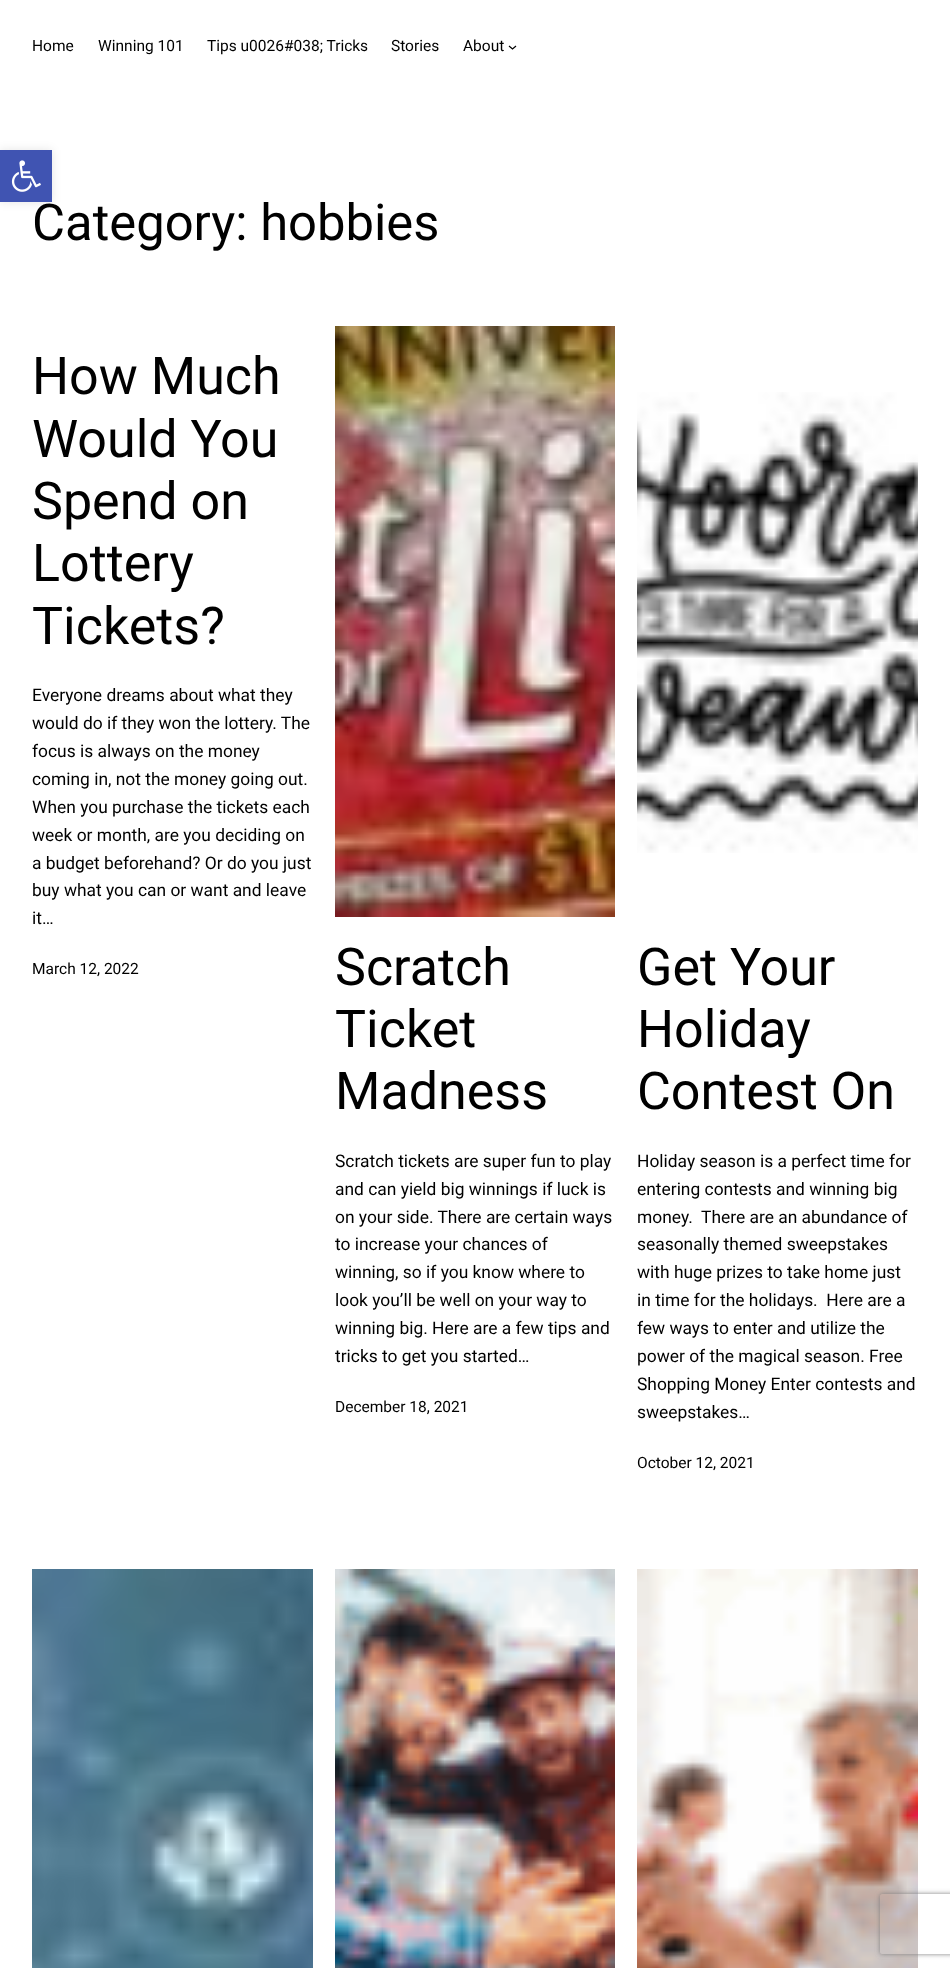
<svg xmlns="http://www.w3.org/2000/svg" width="950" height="1968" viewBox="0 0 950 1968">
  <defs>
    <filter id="blur1" x="-50%" y="-200%" width="200%" height="500%"><feGaussianBlur stdDeviation="5"/></filter>
    <clipPath id="clip1"><path d="M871 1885H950V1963H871ZM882 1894H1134C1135 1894 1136 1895 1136 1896V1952C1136 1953 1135 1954 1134 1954H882C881 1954 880 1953 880 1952V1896C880 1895 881 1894 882 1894Z" clip-rule="evenodd"/></clipPath>
    <filter id="blur2" x="-50%" y="-200%" width="200%" height="500%"><feGaussianBlur stdDeviation="2.5"/></filter>
  </defs>
  <rect width="100%" height="100%" fill="#ffffff"/>
  <text x="32" y="51" font-family="Roboto" font-size="15.5" fill="#000000">Home</text>
  <text x="98" y="51" font-family="Roboto" font-size="15.5" fill="#000000">Winning 101</text>
  <text x="207" y="51" font-family="Roboto" font-size="15.5" fill="#000000">Tips u0026#038; Tricks</text>
  <text x="391" y="51" font-family="Roboto" font-size="15.5" fill="#000000">Stories</text>
  <text x="463" y="51" font-family="Roboto" font-size="15.5" fill="#000000">About</text>
  <path d="M509 46L512.5 49L516 46" fill="none" stroke="#000000" stroke-width="1.2"/>
  <text x="32" y="240" font-family="Roboto" font-size="50.75" fill="#000000">Category: hobbies</text>
  <text x="32" y="394" font-family="Roboto" font-size="52" fill="#000000">How Much</text>
  <text x="32" y="457" font-family="Roboto" font-size="52" fill="#000000">Would You</text>
  <text x="32" y="519" font-family="Roboto" font-size="52" fill="#000000">Spend on</text>
  <text x="32" y="581" font-family="Roboto" font-size="52" fill="#000000">Lottery</text>
  <text x="32" y="644" font-family="Roboto" font-size="52" fill="#000000">Tickets?</text>
  <text x="32" y="701" font-family="Roboto" font-size="17.4" fill="#000000">Everyone dreams about what they</text>
  <text x="32" y="729" font-family="Roboto" font-size="17.4" fill="#000000">would do if they won the lottery. The</text>
  <text x="32" y="757" font-family="Roboto" font-size="17.4" fill="#000000">focus is always on the money</text>
  <text x="32" y="785" font-family="Roboto" font-size="17.4" fill="#000000">coming in, not the money going out.</text>
  <text x="32" y="813" font-family="Roboto" font-size="17.4" fill="#000000">When you purchase the tickets each</text>
  <text x="32" y="841" font-family="Roboto" font-size="17.4" fill="#000000">week or month, are you deciding on</text>
  <text x="32" y="869" font-family="Roboto" font-size="17.4" fill="#000000">a budget beforehand? Or do you just</text>
  <text x="32" y="896" font-family="Roboto" font-size="17.4" fill="#000000">buy what you can or want and leave</text>
  <text x="32" y="924" font-family="Roboto" font-size="17.4" fill="#000000">it…</text>
  <text x="32" y="974" font-family="Roboto" font-size="15.5" fill="#000000">March 12, 2022</text>
  <image x="335" y="326" width="280" height="591" href="img1.png"/>
  <text x="335" y="985" font-family="Roboto" font-size="52" fill="#000000">Scratch</text>
  <text x="335" y="1047" font-family="Roboto" font-size="52" fill="#000000">Ticket</text>
  <text x="335" y="1109" font-family="Roboto" font-size="52" fill="#000000">Madness</text>
  <text x="335" y="1167" font-family="Roboto" font-size="17.4" fill="#000000">Scratch tickets are super fun to play</text>
  <text x="335" y="1195" font-family="Roboto" font-size="17.4" fill="#000000">and can yield big winnings if luck is</text>
  <text x="335" y="1223" font-family="Roboto" font-size="17.4" fill="#000000">on your side. There are certain ways</text>
  <text x="335" y="1250" font-family="Roboto" font-size="17.4" fill="#000000">to increase your chances of</text>
  <text x="335" y="1278" font-family="Roboto" font-size="17.4" fill="#000000">winning, so if you know where to</text>
  <text x="335" y="1306" font-family="Roboto" font-size="17.4" fill="#000000">look you’ll be well on your way to</text>
  <text x="335" y="1334" font-family="Roboto" font-size="17.4" fill="#000000">winning big. Here are a few tips and</text>
  <text x="335" y="1362" font-family="Roboto" font-size="17.4" fill="#000000">tricks to get you started…</text>
  <text x="335" y="1412" font-family="Roboto" font-size="15.5" fill="#000000">December 18, 2021</text>
  <image x="637" y="392" width="281" height="461" href="img2.png"/>
  <text x="637" y="985" font-family="Roboto" font-size="52" fill="#000000">Get Your</text>
  <text x="637" y="1047" font-family="Roboto" font-size="52" fill="#000000">Holiday</text>
  <text x="637" y="1109" font-family="Roboto" font-size="52" fill="#000000">Contest On</text>
  <text x="637" y="1167" font-family="Roboto" font-size="17.4" fill="#000000">Holiday season is a perfect time for</text>
  <text x="637" y="1195" font-family="Roboto" font-size="17.4" fill="#000000">entering contests and winning big</text>
  <text x="637" y="1223" font-family="Roboto" font-size="17.4" fill="#000000" xml:space="preserve">money.  There are an abundance of</text>
  <text x="637" y="1250" font-family="Roboto" font-size="17.4" fill="#000000">seasonally themed sweepstakes</text>
  <text x="637" y="1278" font-family="Roboto" font-size="17.4" fill="#000000">with huge prizes to take home just</text>
  <text x="637" y="1306" font-family="Roboto" font-size="17.4" fill="#000000" xml:space="preserve">in time for the holidays.  Here are a</text>
  <text x="637" y="1334" font-family="Roboto" font-size="17.4" fill="#000000">few ways to enter and utilize the</text>
  <text x="637" y="1362" font-family="Roboto" font-size="17.4" fill="#000000">power of the magical season. Free</text>
  <text x="637" y="1390" font-family="Roboto" font-size="17.4" fill="#000000">Shopping Money Enter contests and</text>
  <text x="637" y="1418" font-family="Roboto" font-size="17.4" fill="#000000">sweepstakes…</text>
  <text x="637" y="1468" font-family="Roboto" font-size="15.5" fill="#000000">October 12, 2021</text>
  <image x="32" y="1569" width="281" height="399" href="img3.png"/>
  <image x="335" y="1569" width="280" height="399" href="img4.png"/>
  <image x="637" y="1569" width="281" height="399" href="img5.png"/>
  <rect x="0" y="150" width="52" height="52" fill="#000000" fill-opacity="0.1" filter="url(#blur1)"/>
  <rect x="0" y="150" width="52" height="52" fill="#4054b2"/>
  <image x="11" y="160" width="30" height="32" href="img6.png"/>
  <g clip-path="url(#clip1)">
    <rect x="880" y="1894" width="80" height="60" rx="2" fill="#808080" filter="url(#blur2)"/>
  </g>
</svg>
